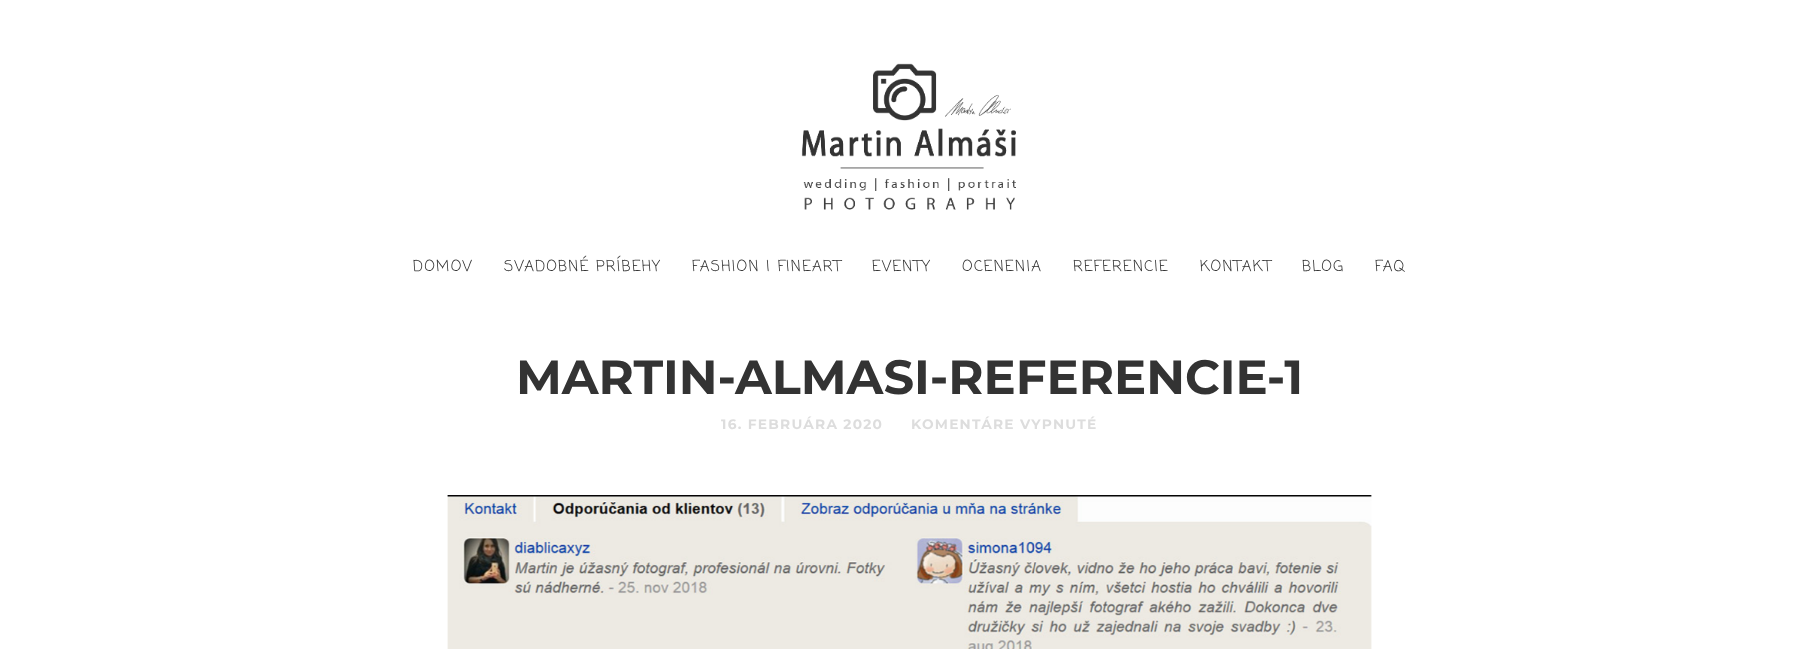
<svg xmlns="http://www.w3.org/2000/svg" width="1818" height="649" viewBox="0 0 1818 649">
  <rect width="100%" height="100%" fill="#ffffff"/>
  <image x="801" y="63" width="215" height="147" href="img1.png"/>
  <text x="413" y="271" font-family="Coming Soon" font-size="15" letter-spacing="1.25" fill="#333333">DOMOV</text>
  <text x="504" y="271" font-family="Coming Soon" font-size="15" letter-spacing="1.25" fill="#333333">SVADOBNÉ PRÍBEHY</text>
  <text x="692" y="271" font-family="Coming Soon" font-size="15" letter-spacing="1.25" fill="#333333">FASHION | FINEART</text>
  <text x="872" y="271" font-family="Coming Soon" font-size="15" letter-spacing="1.25" fill="#333333">EVENTY</text>
  <text x="962" y="271" font-family="Coming Soon" font-size="15" letter-spacing="1.25" fill="#333333">OCENENIA</text>
  <text x="1073" y="271" font-family="Coming Soon" font-size="15" letter-spacing="1.25" fill="#333333">REFERENCIE</text>
  <text x="1200" y="271" font-family="Coming Soon" font-size="15" letter-spacing="1.25" fill="#333333">KONTAKT</text>
  <text x="1302" y="271" font-family="Coming Soon" font-size="15" letter-spacing="1.25" fill="#333333">BLOG</text>
  <text x="1375" y="271" font-family="Coming Soon" font-size="15" letter-spacing="1.25" fill="#333333">FAQ</text>
  <text x="516" y="394" font-family="Montserrat" font-size="48" font-weight="bold" fill="#333333">MARTIN-ALMASI-REFERENCIE-1</text>
  <text x="721" y="429" font-family="Montserrat" font-size="13.75" font-weight="bold" letter-spacing="1.25" fill="#dddddd">16. FEBRUÁRA 2020</text>
  <text x="911" y="429" font-family="Montserrat" font-size="13.75" font-weight="bold" letter-spacing="1.25" fill="#dddddd">KOMENTÁRE VYPNUTÉ</text>
  <image x="447" y="495" width="925" height="154" href="img2.png"/>
</svg>
